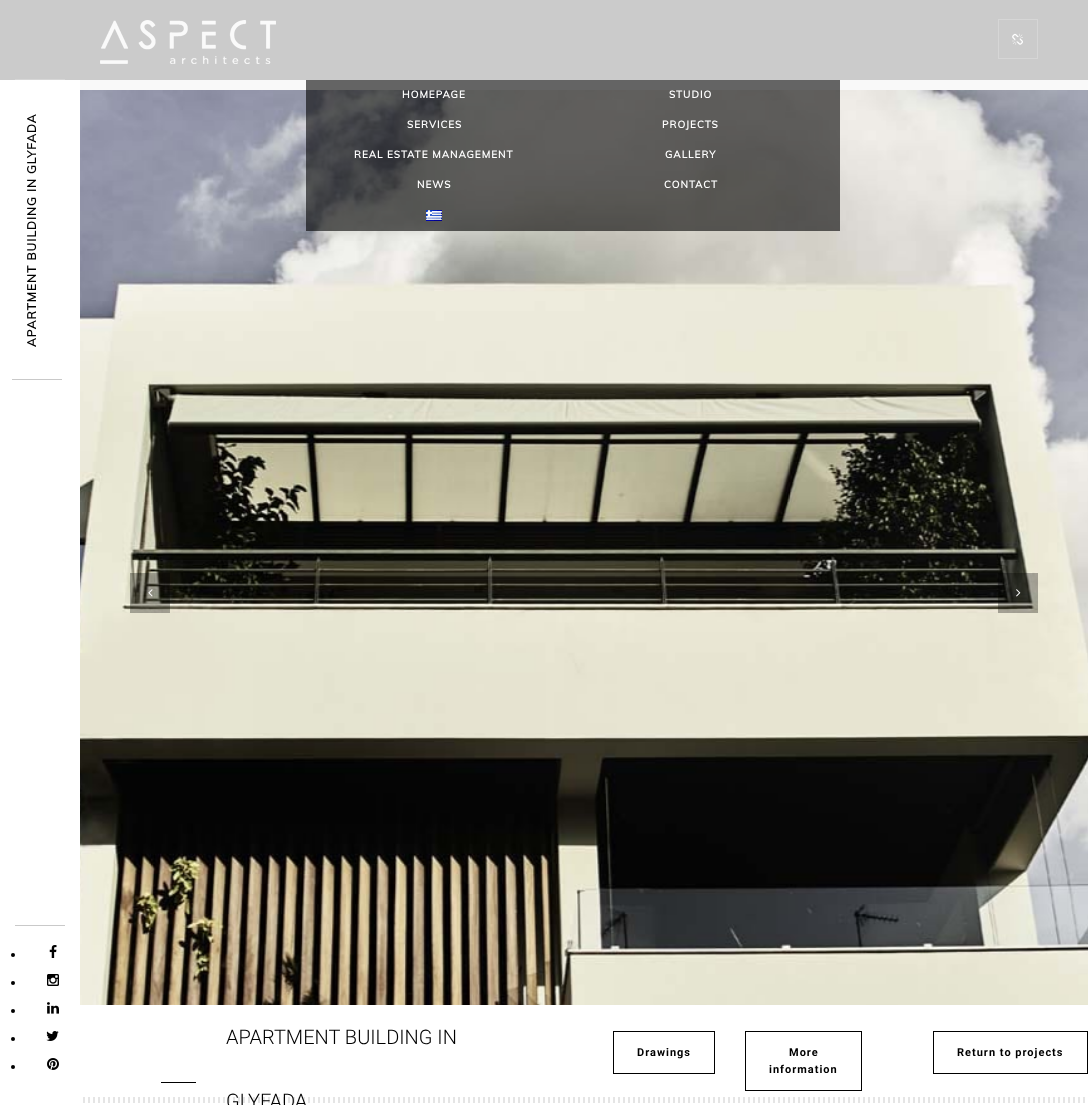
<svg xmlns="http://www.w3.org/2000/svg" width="1088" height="1105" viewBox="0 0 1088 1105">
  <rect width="100%" height="100%" fill="#f9f9f9"/>
  <rect x="0" y="80" width="80" height="1025" fill="#ffffff"/>
  <text x="36" y="347" transform="rotate(-90 36 347)" font-family="Muli" font-size="12" font-weight="bold" letter-spacing="1" fill="#000000">APARTMENT BUILDING IN GLYFADA</text>
  <rect x="12" y="379" width="50" height="1" fill="#c9c9c9"/>
  <rect x="15" y="925" width="50" height="1" fill="#c9c9c9"/>
  <circle cx="13" cy="955" r="2" fill="#000000"/>
  <image x="49" y="945" width="8" height="13" href="img1.png"/>
  <circle cx="13" cy="983" r="2" fill="#000000"/>
  <image x="47" y="974" width="12" height="12" href="img2.png"/>
  <circle cx="13" cy="1011" r="2" fill="#000000"/>
  <image x="47" y="1002" width="12" height="12" href="img3.png"/>
  <circle cx="13" cy="1039" r="2" fill="#000000"/>
  <image x="46" y="1031" width="13" height="10" href="img4.png"/>
  <circle cx="13" cy="1067" r="2" fill="#000000"/>
  <image x="47" y="1058" width="12" height="12" href="img5.png"/>
  <rect x="0" y="0" width="1088" height="80" fill="#cbcbcb"/>
  <rect x="998.5" y="19.5" width="39" height="39" fill="none" stroke="#d6d6d6"/>
  <image x="1012" y="33" width="11" height="12" href="img6.png"/>
  <rect x="15" y="79" width="50" height="1" fill="#d6d6d6"/>
  <image x="100" y="20" width="176" height="44" href="img7.png"/>
  <image x="80" y="90" width="1008" height="915" href="img9.png"/>
  <rect x="306" y="80" width="534" height="151" fill="#000000" fill-opacity="0.6"/>
  <text x="402" y="98" font-family="Muli" font-size="10" font-weight="bold" letter-spacing="1" fill="#ffffff">HOMEPAGE</text>
  <text x="669" y="98" font-family="Muli" font-size="10" font-weight="bold" letter-spacing="1" fill="#ffffff">STUDIO</text>
  <text x="407" y="128" font-family="Muli" font-size="10" font-weight="bold" letter-spacing="1" fill="#ffffff">SERVICES</text>
  <text x="662" y="128" font-family="Muli" font-size="10" font-weight="bold" letter-spacing="1" fill="#ffffff">PROJECTS</text>
  <text x="354" y="158" font-family="Muli" font-size="10" font-weight="bold" letter-spacing="1" fill="#ffffff">REAL ESTATE MANAGEMENT</text>
  <text x="665" y="158" font-family="Muli" font-size="10" font-weight="bold" letter-spacing="1" fill="#ffffff">GALLERY</text>
  <text x="417" y="188" font-family="Muli" font-size="10" font-weight="bold" letter-spacing="1" fill="#ffffff">NEWS</text>
  <text x="664" y="188" font-family="Muli" font-size="10" font-weight="bold" letter-spacing="1" fill="#ffffff">CONTACT</text>
  <image x="426" y="210" width="16" height="11" href="img8.png"/>
  <rect x="130" y="573" width="40" height="40" fill="#000000" fill-opacity="0.31"/>
  <image x="148" y="589" width="5" height="8" href="img10.png"/>
  <rect x="998" y="573" width="40" height="40" fill="#000000" fill-opacity="0.31"/>
  <image x="1016" y="589" width="5" height="8" href="img11.png"/>
  <rect x="80" y="1005" width="1008" height="100" fill="#ffffff"/>
  <rect x="161" y="1082" width="35" height="1" fill="#000000"/>
  <text x="226" y="1044" font-family="Roboto" font-size="20" font-weight="300" fill="#000000">APARTMENT BUILDING IN</text>
  <image x="83" y="1097" width="1002" height="6" href="img12.png"/>
  <text x="226" y="1108" font-family="Roboto" font-size="20" font-weight="300" fill="#000000">GLYFADA</text>
  <rect x="613.5" y="1031.5" width="101" height="42" fill="none" stroke="#000000"/>
  <text x="637" y="1056" font-family="Roboto" font-size="11" font-weight="bold" letter-spacing="1" fill="#000000">Drawings</text>
  <rect x="745.5" y="1031.5" width="116" height="59" fill="none" stroke="#000000"/>
  <text x="789" y="1056" font-family="Roboto" font-size="11" font-weight="bold" letter-spacing="1" fill="#000000">More</text>
  <text x="769" y="1073" font-family="Roboto" font-size="11" font-weight="bold" letter-spacing="1" fill="#000000">information</text>
  <rect x="933.5" y="1031.5" width="154" height="42" fill="none" stroke="#000000"/>
  <text x="957" y="1056" font-family="Roboto" font-size="11" font-weight="bold" letter-spacing="1" fill="#000000">Return to projects</text>
</svg>
